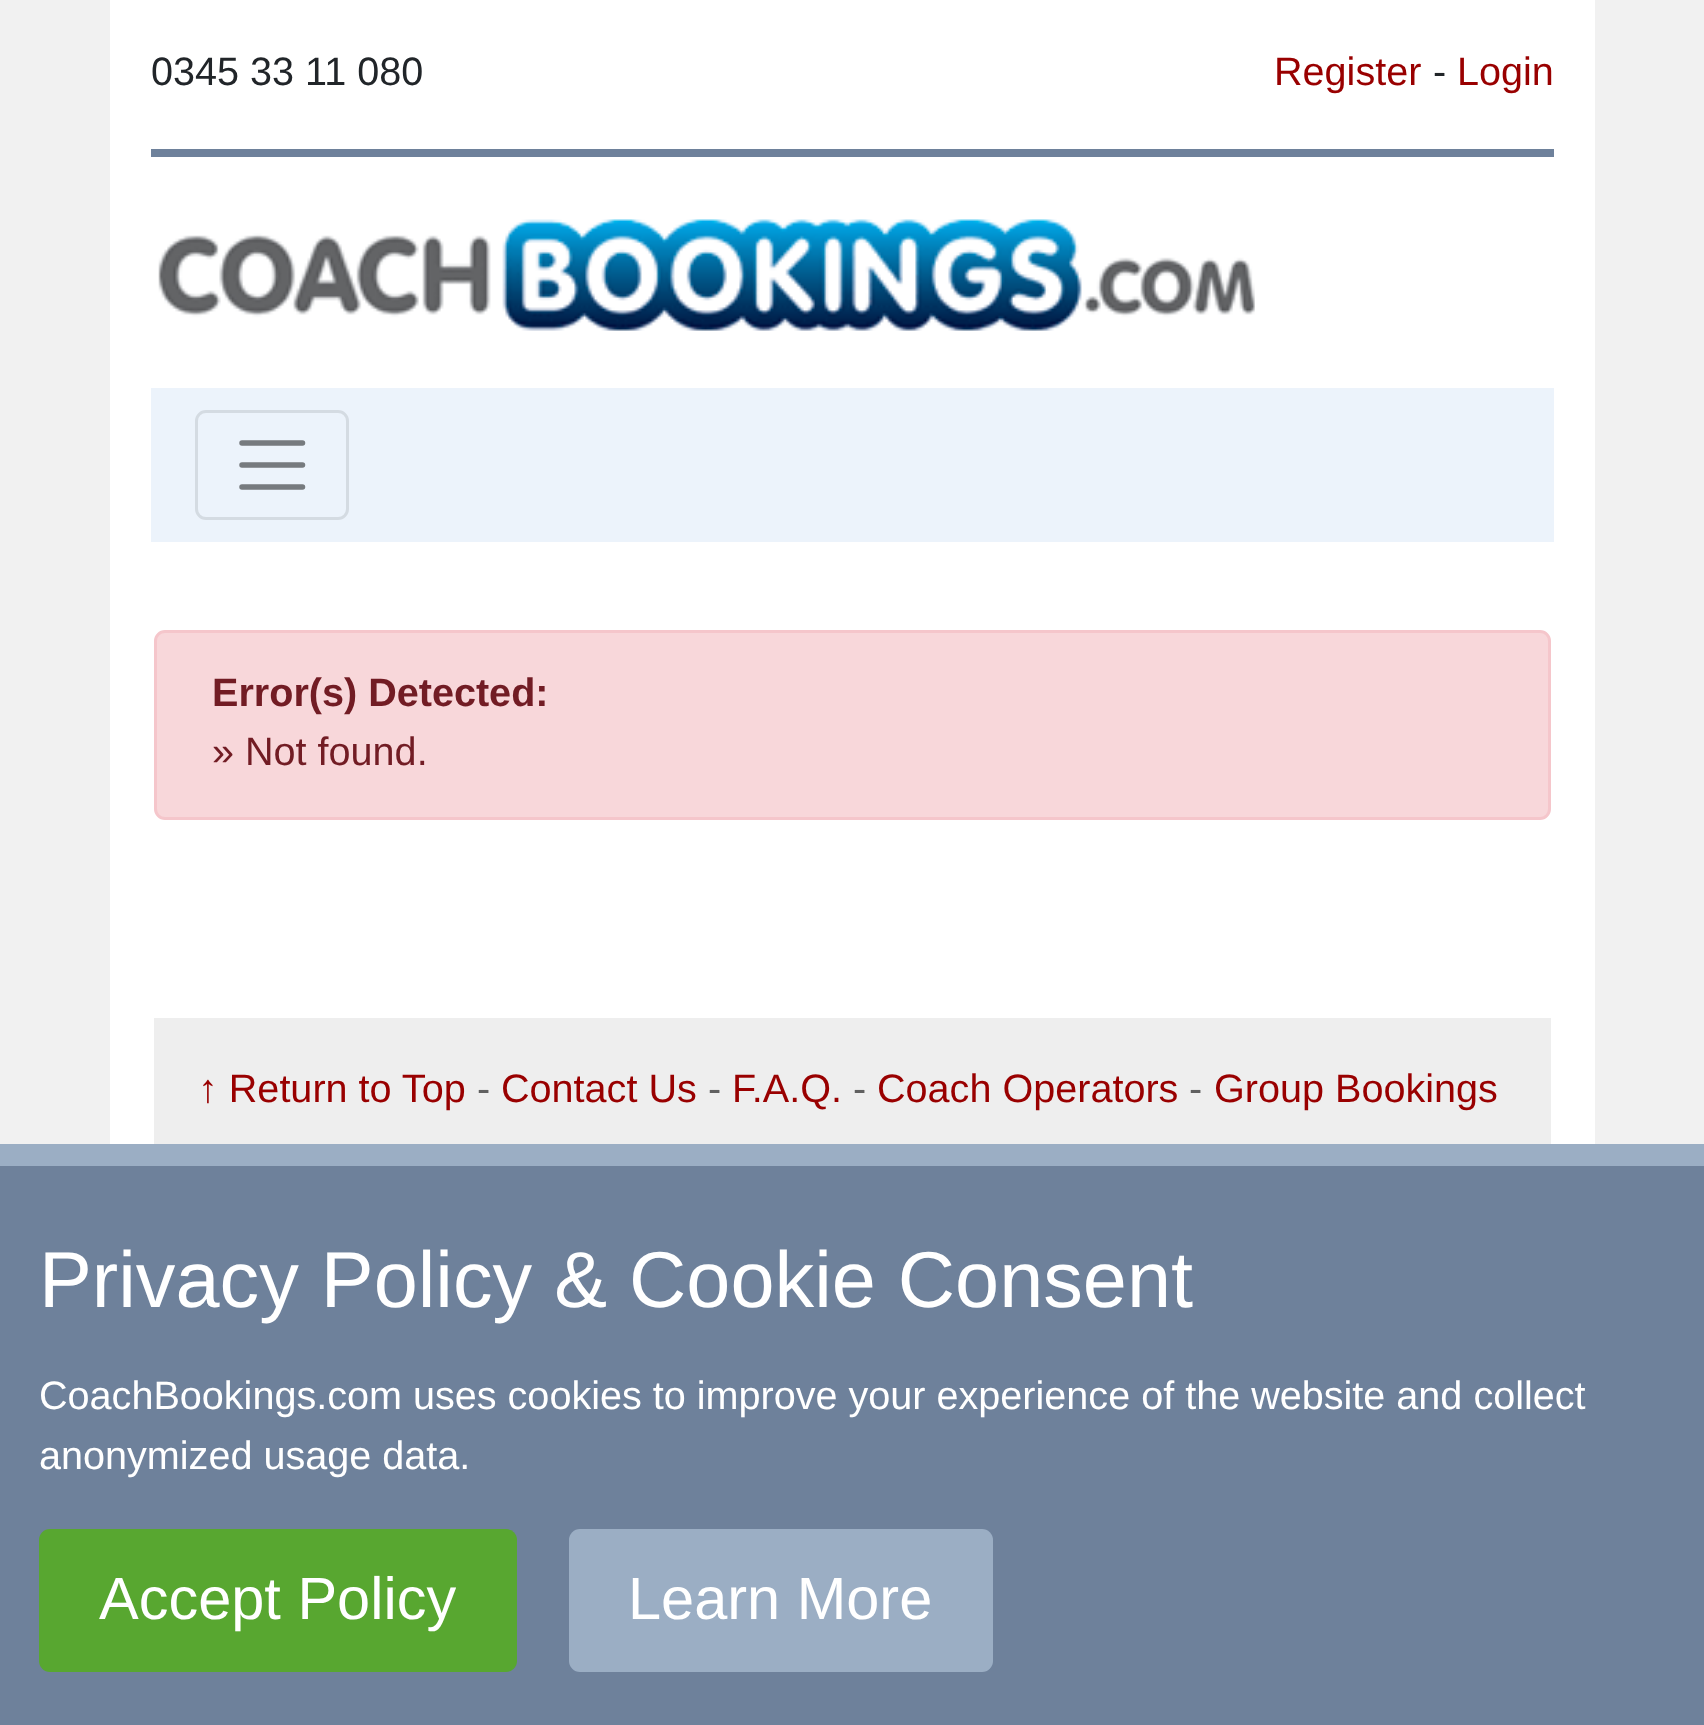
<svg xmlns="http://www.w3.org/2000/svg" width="1704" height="1725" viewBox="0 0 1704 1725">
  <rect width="100%" height="100%" fill="#f1f1f1"/>
  <rect x="110" y="0" width="1485" height="1144" fill="#ffffff"/>
  <text x="151" y="85" font-family="Liberation Sans" font-size="39.6" fill="#212529">0345 33 11 080</text>
  <text x="1274" y="85" font-family="Liberation Sans" font-size="39.6" fill="#990000">Register</text>
  <text x="1433" y="85" font-family="Liberation Sans" font-size="39.6" fill="#212529">-</text>
  <text x="1457" y="85" font-family="Liberation Sans" font-size="39.6" fill="#990000">Login</text>
  <rect x="151" y="149" width="1403" height="8" fill="#6e819b"/>
  <image x="158" y="219" width="1097" height="112" href="img1.png"/>
  <rect x="151" y="388" width="1403" height="154" fill="#ecf3fb"/>
  <rect x="196.5" y="411.5" width="151" height="107" rx="9.5" fill="none" stroke="#d4dbe2" stroke-width="3"/>
  <path d="M242 443H302.5M242 465H302.5M242 487H302.5" fill="none" stroke="#767a7e" stroke-width="5.5" stroke-linecap="round"/>
  <rect x="155.5" y="631.5" width="1394" height="187" rx="9.5" fill="#f8d7da" stroke="#f5c6cb" stroke-width="3"/>
  <text x="212" y="706" font-family="Liberation Sans" font-size="39.6" font-weight="bold" fill="#721c24">Error(s) Detected:</text>
  <text x="212" y="765" font-family="Liberation Sans" font-size="39.6" fill="#721c24">» Not found.</text>
  <rect x="154" y="1018" width="1397" height="126" fill="#eeeeee"/>
  <text x="198" y="1102" font-family="Liberation Sans" font-size="39.6" fill="#990000">↑ Return to Top</text>
  <text x="477" y="1102" font-family="Liberation Sans" font-size="39.6" fill="#606060">-</text>
  <text x="501" y="1102" font-family="Liberation Sans" font-size="39.6" fill="#990000">Contact Us</text>
  <text x="708" y="1102" font-family="Liberation Sans" font-size="39.6" fill="#606060">-</text>
  <text x="732" y="1102" font-family="Liberation Sans" font-size="39.6" fill="#990000">F.A.Q.</text>
  <text x="853" y="1102" font-family="Liberation Sans" font-size="39.6" fill="#606060">-</text>
  <text x="877" y="1102" font-family="Liberation Sans" font-size="39.6" fill="#990000">Coach Operators</text>
  <text x="1189" y="1102" font-family="Liberation Sans" font-size="39.6" fill="#606060">-</text>
  <text x="1214" y="1102" font-family="Liberation Sans" font-size="39.6" fill="#990000">Group Bookings</text>
  <rect x="0" y="1166" width="1704" height="559" fill="#6e819b"/>
  <rect x="0" y="1144" width="1704" height="22" fill="#9baec4"/>
  <text x="39" y="1307" font-family="Liberation Sans" font-size="79.25" fill="#ffffff">Privacy Policy &amp; Cookie Consent</text>
  <text x="39" y="1409" font-family="Liberation Sans" font-size="39.6" fill="#ffffff">CoachBookings.com uses cookies to improve your experience of the website and collect</text>
  <text x="39" y="1469" font-family="Liberation Sans" font-size="39.6" fill="#ffffff">anonymized usage data.</text>
  <rect x="39" y="1529" width="478" height="143" rx="11" fill="#58a730"/>
  <text x="99" y="1619" font-family="Liberation Sans" font-size="59.5" fill="#ffffff">Accept Policy</text>
  <rect x="569" y="1529" width="424" height="143" rx="11" fill="#9baec4"/>
  <text x="628" y="1619" font-family="Liberation Sans" font-size="59.5" fill="#ffffff">Learn More</text>
</svg>
